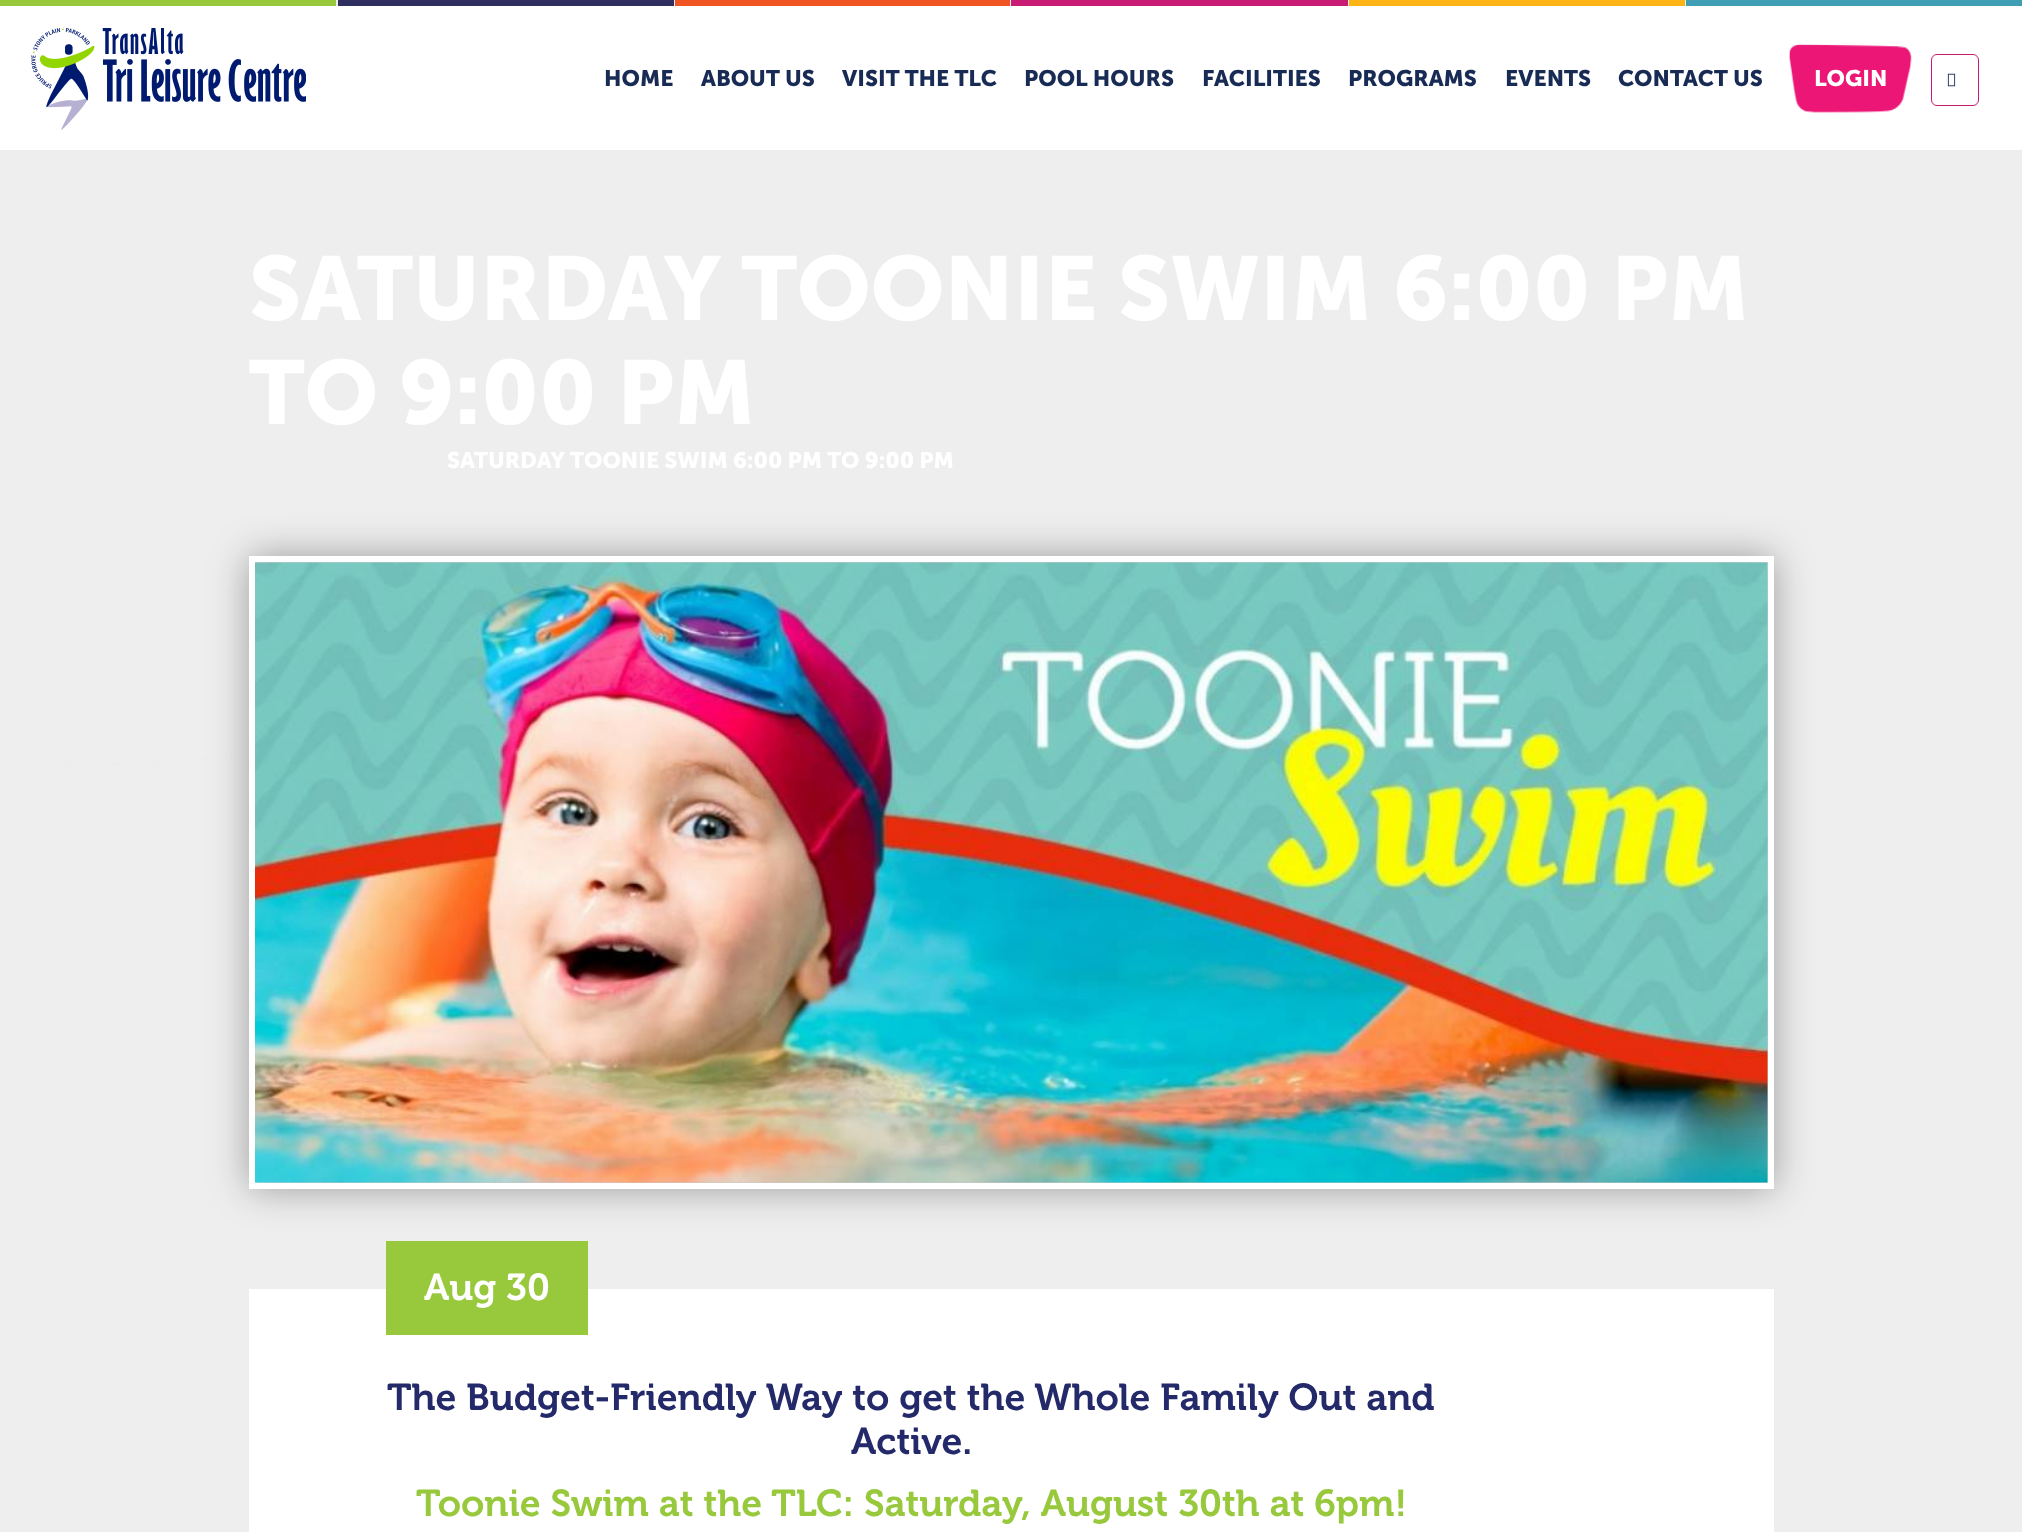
<svg xmlns="http://www.w3.org/2000/svg" width="2022" height="1532" viewBox="0 0 2022 1532">
  <defs>
    <filter id="blur1" x="-50%" y="-200%" width="200%" height="500%"><feGaussianBlur stdDeviation="19"/></filter>
  </defs>
  <rect width="100%" height="100%" fill="#eeeeee"/>
  <rect x="0" y="0" width="336" height="6" fill="#98c93c"/>
  <rect x="338" y="0" width="336" height="6" fill="#2e2f5f"/>
  <rect x="675" y="0" width="335" height="6" fill="#f05423"/>
  <rect x="1011" y="0" width="337" height="6" fill="#c81b74"/>
  <rect x="1349" y="0" width="336" height="6" fill="#fdb414"/>
  <rect x="1686" y="0" width="336" height="6" fill="#3f9eb4"/>
  <rect x="0" y="6" width="2022" height="144" fill="#ffffff"/>
  <image x="31" y="28" width="275" height="102" href="img1.png"/>
  <text x="604" y="86" font-family="Museo Sans" font-size="22.5" font-weight="bold" fill="#182b55">HOME</text>
  <text x="701" y="86" font-family="Museo Sans" font-size="22.5" font-weight="bold" fill="#182b55">ABOUT US</text>
  <text x="842" y="86" font-family="Museo Sans" font-size="22.5" font-weight="bold" fill="#182b55">VISIT THE TLC</text>
  <text x="1024" y="86" font-family="Museo Sans" font-size="22.5" font-weight="bold" fill="#182b55">POOL HOURS</text>
  <text x="1202" y="86" font-family="Museo Sans" font-size="22.5" font-weight="bold" fill="#182b55">FACILITIES</text>
  <text x="1348" y="86" font-family="Museo Sans" font-size="22.5" font-weight="bold" fill="#182b55">PROGRAMS</text>
  <text x="1505" y="86" font-family="Museo Sans" font-size="22.5" font-weight="bold" fill="#182b55">EVENTS</text>
  <text x="1618" y="86" font-family="Museo Sans" font-size="22.5" font-weight="bold" fill="#182b55">CONTACT US</text>
  <image x="1789" y="44" width="123" height="69" href="img2.png"/>
  <text x="1814" y="86" font-family="Museo Sans" font-size="22.5" font-weight="bold" fill="#ffffff">LOGIN</text>
  <rect x="1931.5" y="54.5" width="47" height="51" rx="5.5" fill="none" stroke="#c81b74"/>
  <image x="1947" y="73" width="9" height="14" href="img3.png"/>
  <text x="249" y="320" font-family="Museo Sans" font-size="90" font-weight="bold" fill="#ffffff">SATURDAY TOONIE SWIM 6:00 PM</text>
  <text x="249" y="424" font-family="Museo Sans" font-size="90" font-weight="bold" fill="#ffffff">TO 9:00 PM</text>
  <text x="447" y="468" font-family="Museo Sans" font-size="22.5" font-weight="bold" fill="#ffffff">SATURDAY TOONIE SWIM 6:00 PM TO 9:00 PM</text>
  <image x="11" y="757" width="238" height="14" href="img4.png"/>
  <rect x="255" y="562" width="1513" height="621" fill="#ffffff"/>
  <rect x="249" y="1289" width="1525" height="243" fill="#ffffff"/>
  <rect x="386" y="1241" width="202" height="94" fill="#98c93c"/>
  <rect x="249" y="556" width="1525" height="633" fill="#0b0b0b" fill-opacity="0.35" filter="url(#blur1)"/>
  <rect x="252" y="559" width="1519" height="627" fill="none" stroke="#ffffff" stroke-width="6"/>
  <image x="255" y="562" width="1513" height="621" href="img5.png"/>
  <text x="424" y="1300" font-family="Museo" font-size="37.5" font-weight="600" fill="#ffffff">Aug 30</text>
  <text x="387" y="1410" font-family="Museo" font-size="37.5" font-weight="600" fill="#242a69">The Budget-Friendly Way to get the Whole Family Out and</text>
  <text x="851" y="1454" font-family="Museo" font-size="37.5" font-weight="600" fill="#242a69">Active.</text>
  <text x="416" y="1516" font-family="Museo" font-size="37.5" font-weight="600" fill="#98c93c">Toonie Swim at the TLC: Saturday, August 30th at 6pm!</text>
</svg>
